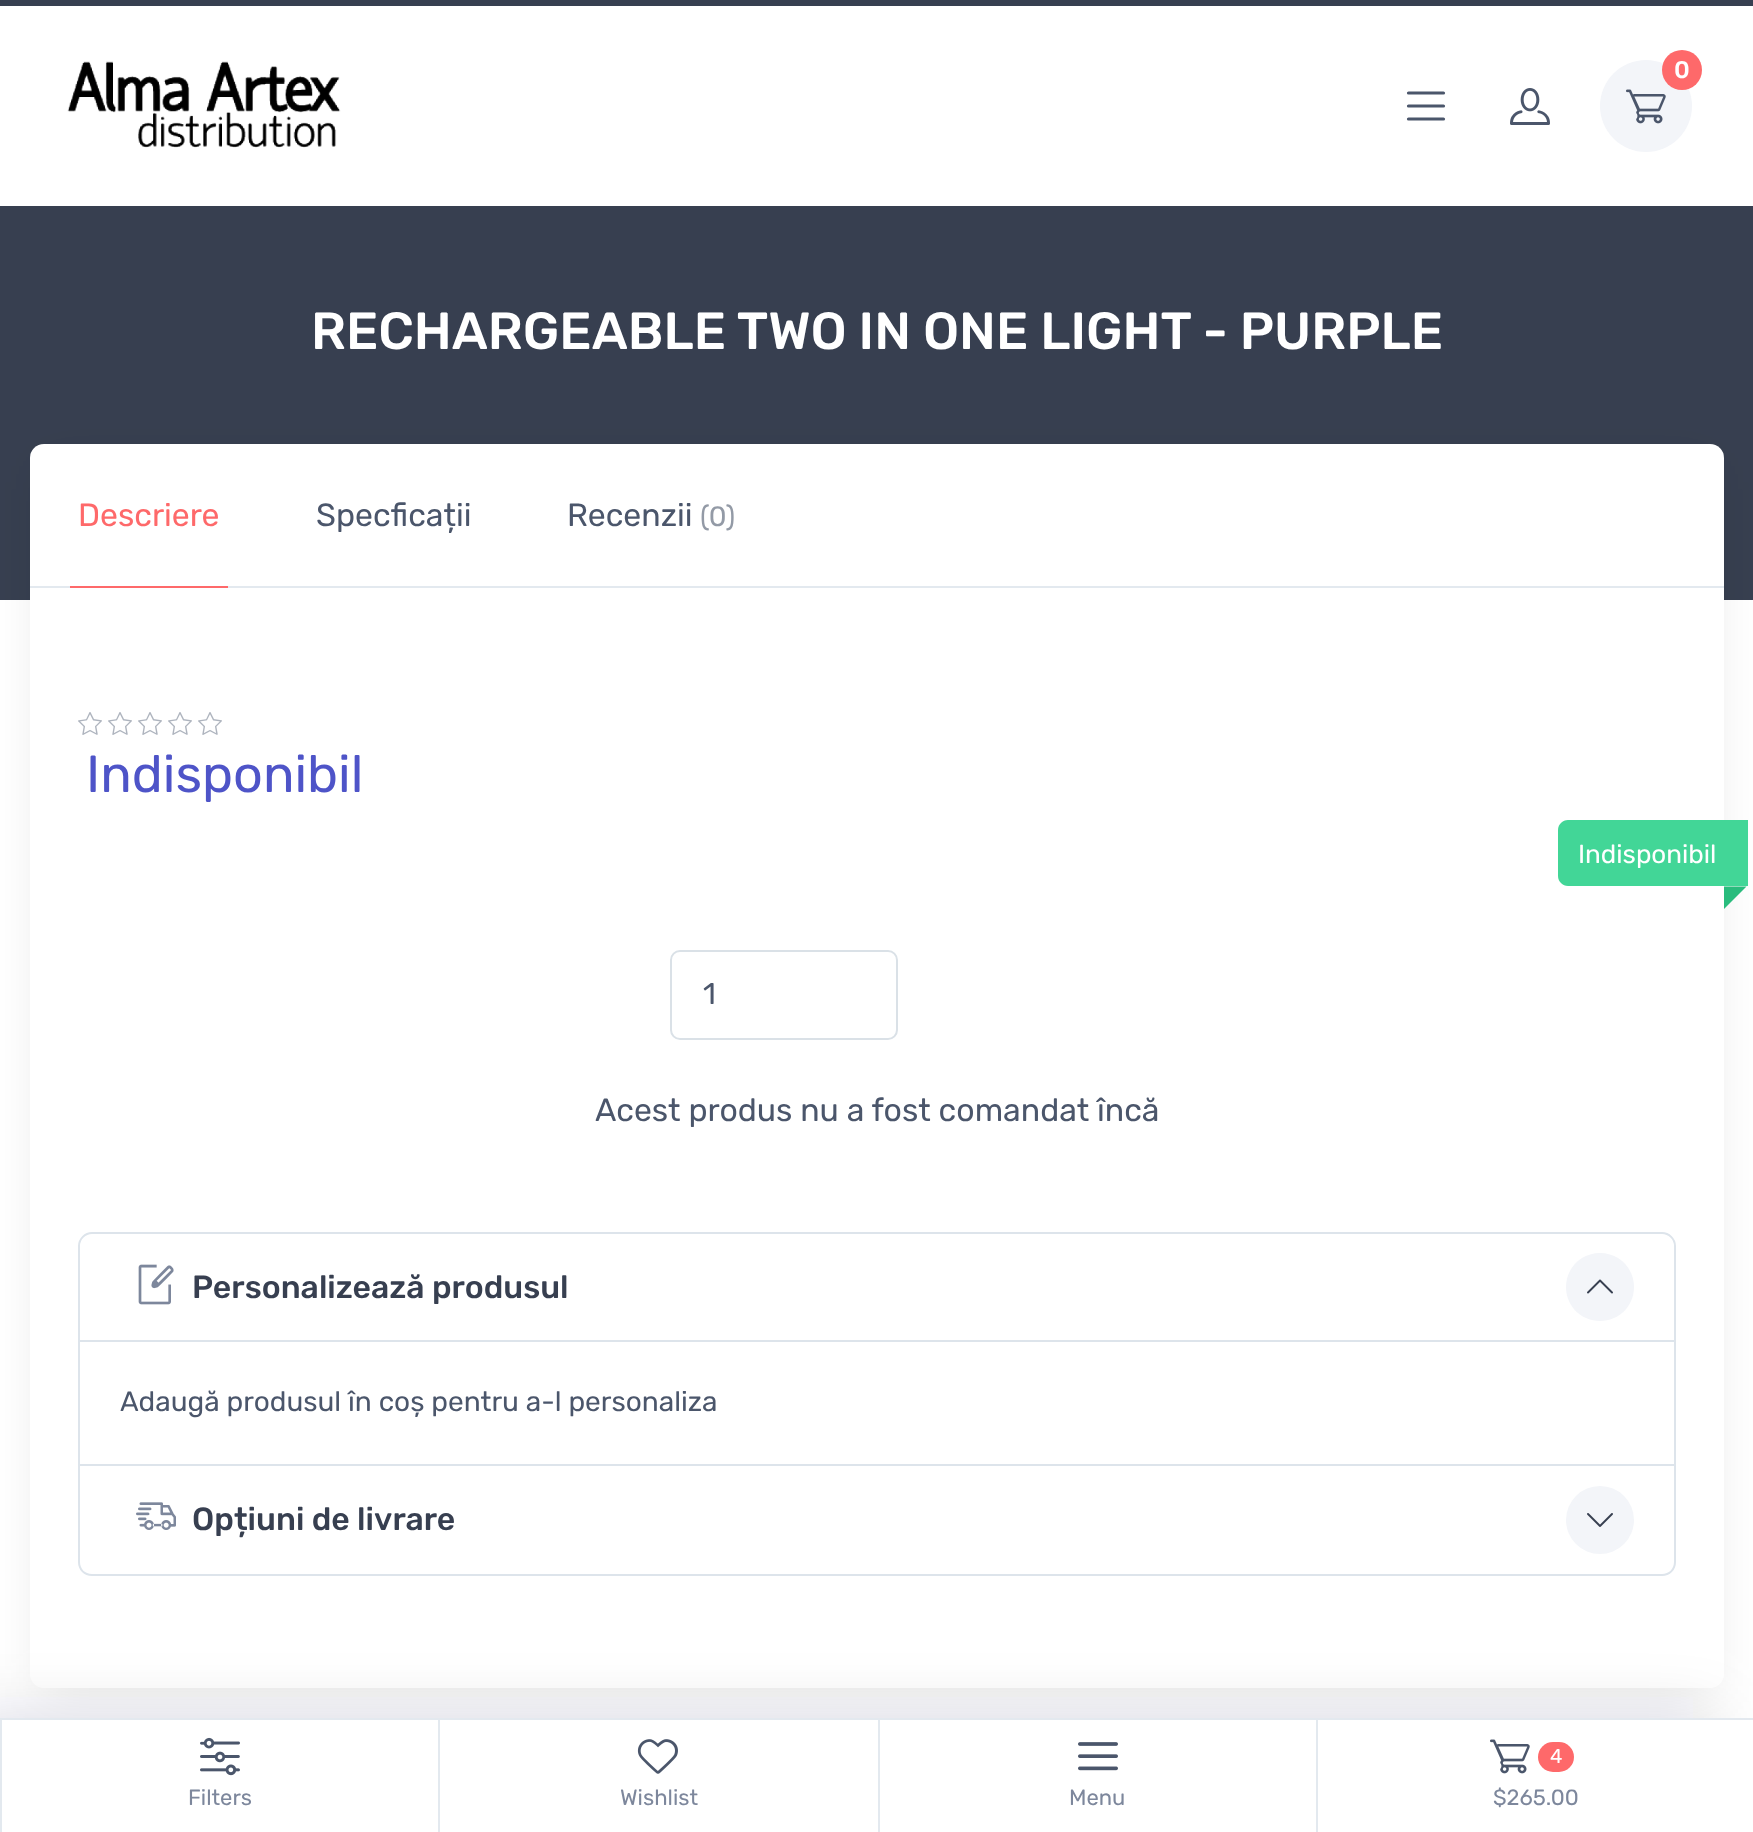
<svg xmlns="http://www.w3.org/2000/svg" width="1753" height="1832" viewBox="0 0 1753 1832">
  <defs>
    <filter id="blur1" x="-50%" y="-200%" width="200%" height="500%"><feGaussianBlur stdDeviation="24.5"/></filter>
    <filter id="blur2" x="-50%" y="-200%" width="200%" height="500%"><feGaussianBlur stdDeviation="32"/></filter>
  </defs>
  <rect width="100%" height="100%" fill="#ffffff"/>
  <rect x="0" y="0" width="1753" height="6" fill="#373f50"/>
  <image x="67" y="61" width="274" height="87" href="img1.png"/>
  <circle cx="1646" cy="106" r="46" fill="#f3f5f9"/>
  <image x="1626" y="89" width="40" height="35" href="img2.png"/>
  <circle cx="1682" cy="70" r="20" fill="#fe696a"/>
  <text x="1674" y="78" font-family="Rubik" font-size="24" font-weight="500" fill="#ffffff">0</text>
  <path d="M1408.5 93H1443.5M1408.5 106H1443.5M1408.5 119H1443.5" fill="none" stroke="#4b566b" stroke-width="3.2" stroke-linecap="round"/>
  <image x="1510" y="88" width="40" height="37" href="img3.png"/>
  <rect x="0" y="206" width="1753" height="394" fill="#373f50"/>
  <text x="311" y="349" font-family="Rubik" font-size="52.1" font-weight="500" fill="#ffffff">RECHARGEABLE TWO IN ONE LIGHT - PURPLE</text>
  <rect x="42" y="466" width="1670" height="1220" rx="2" fill="#000000" fill-opacity="0.1" filter="url(#blur1)"/>
  <rect x="30" y="444" width="1694" height="1244" rx="14" fill="#ffffff"/>
  <rect x="30" y="586" width="1694" height="2" fill="#e3e9ef"/>
  <text x="78" y="526" font-family="Rubik" font-size="32" fill="#fe696a">Descriere</text>
  <rect x="70" y="586" width="158" height="2" fill="#fe696a"/>
  <text x="316" y="526" font-family="Rubik" font-size="32" fill="#4b566b">Specficații</text>
  <text x="567" y="526" font-family="Rubik" font-size="32" fill="#4b566b">Recenzii</text>
  <text x="700" y="526" font-family="Rubik" font-size="28" fill="#939aa6">(0)</text>
  <image x="78" y="712" width="24" height="23" href="img4.png"/>
  <image x="108" y="712" width="24" height="23" href="img4.png"/>
  <image x="138" y="712" width="24" height="23" href="img4.png"/>
  <image x="168" y="712" width="24" height="23" href="img4.png"/>
  <image x="198" y="712" width="24" height="23" href="img4.png"/>
  <text x="86" y="792" font-family="Rubik" font-size="52.1" fill="#4e54c8">Indisponibil</text>
  <path d="M1568 820H1748V886H1568C1562.5 886 1558 881.5 1558 876V830C1558 824.5 1562.5 820 1568 820Z" fill="#42d697"/>
  <text x="1578" y="863" font-family="Rubik" font-size="26" fill="#ffffff">Indisponibil</text>
  <path d="M1746.5 886.5L1724 909V886.5Z" fill="#29bc7d"/>
  <rect x="671" y="951" width="226" height="88" rx="9" fill="none" stroke="#dae1e7" stroke-width="2"/>
  <text x="703" y="1004" font-family="Rubik" font-size="30" fill="#4b566b">1</text>
  <text x="595" y="1121" font-family="Rubik" font-size="32" fill="#4b566b">Acest produs nu a fost comandat încă</text>
  <path d="M92 1233H1662C1669 1233 1675 1239 1675 1246V1465H79V1246C79 1239 85 1233 92 1233Z" fill="none" stroke="#dde4eb" stroke-width="2"/>
  <rect x="80" y="1340" width="1594" height="2" fill="#dde4eb"/>
  <image x="138" y="1264" width="36" height="41" href="img5.png"/>
  <text x="192" y="1298" font-family="Rubik" font-size="32" font-weight="500" fill="#373f50">Personalizează produsul</text>
  <path d="M1600 1321C1581 1321 1566 1306 1566 1287C1566 1268 1581 1253 1600 1253C1619 1253 1634 1268 1634 1287C1634 1306 1619 1321 1600 1321Z" fill="#f3f5f9"/>
  <image x="1587" y="1279" width="26" height="15" href="img6.png"/>
  <text x="120" y="1411" font-family="Rubik" font-size="28" fill="#4b566b">Adaugă produsul în coș pentru a-l personaliza</text>
  <path d="M78 1466H1676V1562C1676 1570 1670 1576 1662 1576H92C84 1576 78 1570 78 1562ZM80 1466H1674V1562C1674 1569 1669 1574 1662 1574H92C85 1574 80 1569 80 1562Z" fill="#dde4eb" fill-rule="evenodd"/>
  <image x="136" y="1502" width="40" height="28" href="img7.png"/>
  <text x="192" y="1530" font-family="Rubik" font-size="32" font-weight="500" fill="#373f50">Opțiuni de livrare</text>
  <circle cx="1600" cy="1520" r="34" fill="#f3f5f9"/>
  <image x="1587" y="1513" width="26" height="14" href="img8.png"/>
  <rect x="-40" y="1718" width="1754" height="114" fill="#2b3445" fill-opacity="0.15" filter="url(#blur2)"/>
  <rect x="2" y="1720" width="1751" height="112" fill="#ffffff"/>
  <rect x="0" y="1718" width="1753" height="2" fill="#e3e9ef"/>
  <rect x="0" y="1720" width="2" height="112" fill="#e3e9ef"/>
  <image x="200" y="1737" width="40" height="39" href="img9.png"/>
  <text x="188" y="1805" font-family="Rubik" font-size="22" fill="#7d879c">Filters</text>
  <rect x="438" y="1720" width="2" height="112" fill="#e3e9ef"/>
  <image x="637" y="1739" width="41" height="35" href="img10.png"/>
  <text x="620" y="1805" font-family="Rubik" font-size="22" fill="#7d879c">Wishlist</text>
  <rect x="878" y="1720" width="2" height="112" fill="#e3e9ef"/>
  <image x="1078" y="1742" width="40" height="29" href="img11.png"/>
  <text x="1069" y="1805" font-family="Rubik" font-size="22" fill="#7d879c">Menu</text>
  <rect x="1316" y="1720" width="2" height="112" fill="#e3e9ef"/>
  <image x="1490" y="1739" width="40" height="35" href="img12.png"/>
  <rect x="1538" y="1742" width="36" height="30" rx="15" fill="#fe696a"/>
  <text x="1550" y="1763" font-family="Rubik" font-size="20" fill="#ffffff">4</text>
  <text x="1493" y="1805" font-family="Rubik" font-size="22" fill="#7d879c">$265.00</text>
</svg>
